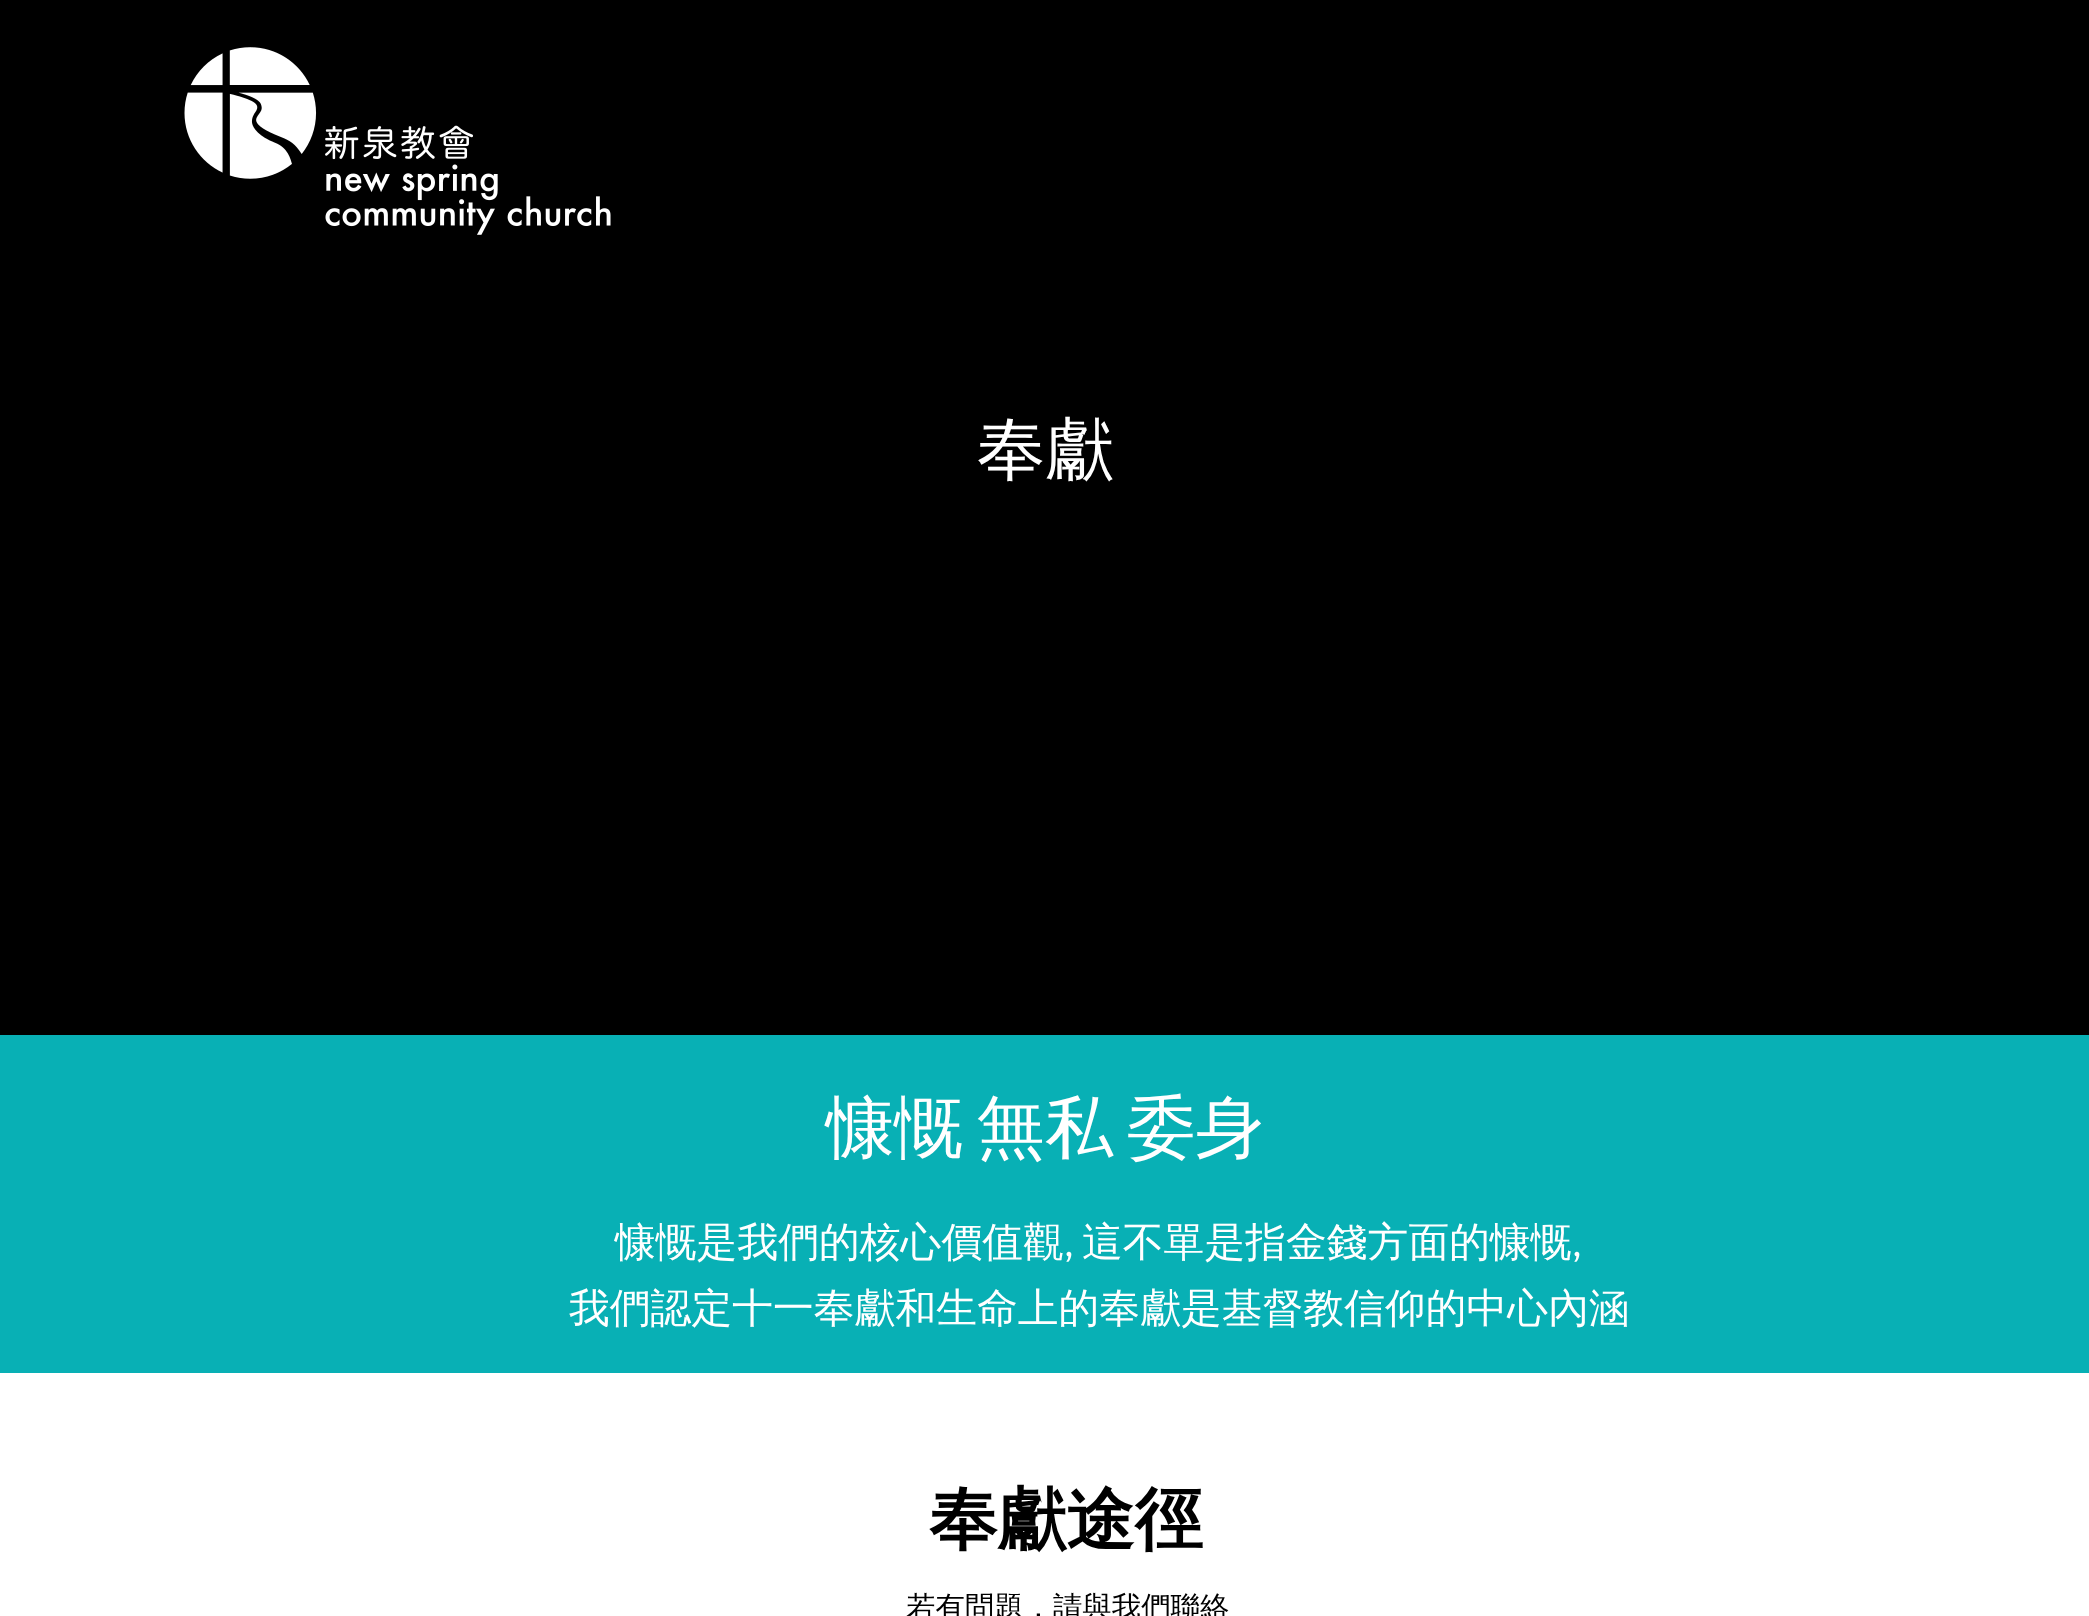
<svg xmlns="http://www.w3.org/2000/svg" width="2089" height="1616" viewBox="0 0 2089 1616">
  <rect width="100%" height="100%" fill="#08b0b5"/>
  <rect x="0" y="0" width="2089" height="1035" fill="#000000"/>
  <image x="184" y="47" width="427" height="188" href="img1.png"/>
  <text x="977" y="473" font-family="WenQuanYi Zen Hei" font-size="68.5" font-weight="500" fill="#ffffff">奉獻</text>
  <text x="826" y="1151" word-spacing="-7" font-family="WenQuanYi Zen Hei" font-size="68.5" font-weight="500" fill="#ffffff">慷慨 無私 委身</text>
  <text x="615" y="1256" font-family="WenQuanYi Zen Hei" font-size="40.8" font-weight="500" fill="#ffffff">慷慨是我們的核心價值觀</text>
  <text x="1064" y="1256" font-family="Wix Madefor Text" font-size="40.8" fill="#ffffff">,</text>
  <text x="1082" y="1256" font-family="WenQuanYi Zen Hei" font-size="40.8" font-weight="500" fill="#ffffff">這不單是指金錢方面的慷慨</text>
  <text x="1572" y="1256" font-family="Wix Madefor Text" font-size="40.8" fill="#ffffff">,</text>
  <text x="569" y="1322" font-family="WenQuanYi Zen Hei" font-size="40.8" font-weight="500" fill="#ffffff">我們認定十一奉獻和生命上的奉獻是基督教信仰的中心內涵</text>
  <rect x="0" y="1373" width="2089" height="243" fill="#ffffff"/>
  <text x="929" y="1543" font-family="WenQuanYi Zen Hei" font-size="68.5" font-weight="bold" fill="#000000">奉獻途徑</text>
  <text x="906" y="1617" font-family="WenQuanYi Zen Hei" font-size="29.4" font-weight="500" fill="#000000">若有問題，請與我們聯絡</text>
</svg>
